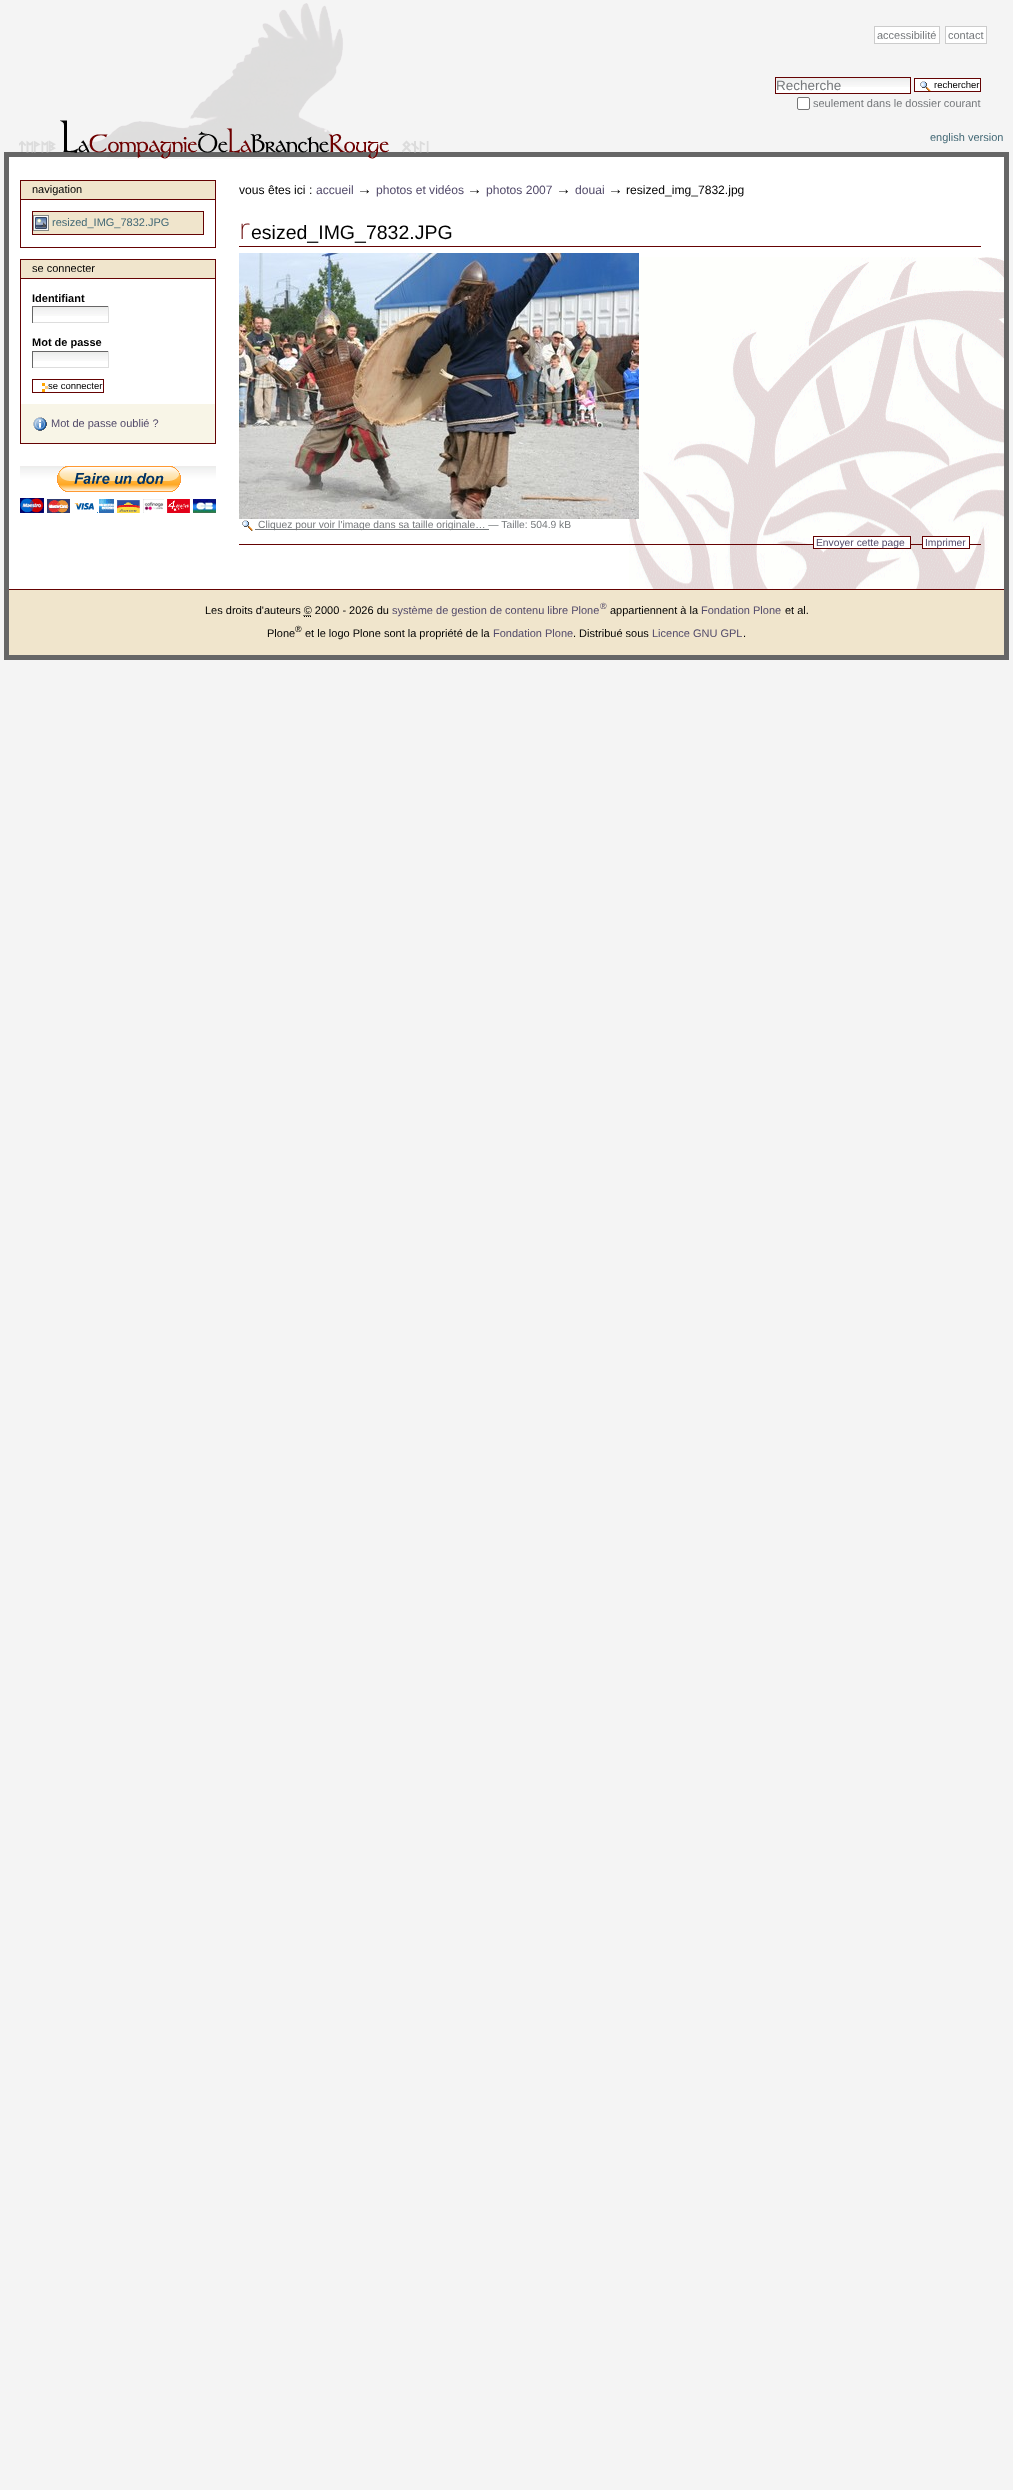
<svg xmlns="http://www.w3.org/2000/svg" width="1013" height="2490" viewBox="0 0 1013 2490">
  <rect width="100%" height="100%" fill="#f4f4f4"/>
  <rect x="9" y="157" width="995" height="432" fill="#ffffff"/>
  <rect x="6.5" y="154.5" width="1000" height="503" fill="none" stroke="#666666" stroke-width="5"/>
  <image x="19" y="3" width="410" height="156" href="img1.png"/>
  <rect x="874.5" y="26.5" width="65" height="17" fill="#ffffff" stroke="#cccccc"/>
  <text x="877" y="39" font-family="Liberation Sans" font-size="11" fill="#76797c">accessibilité</text>
  <rect x="945.5" y="26.5" width="41" height="17" fill="#ffffff" stroke="#cccccc"/>
  <text x="948" y="39" font-family="Liberation Sans" font-size="11" fill="#76797c">contact</text>
  <rect x="776" y="87" width="134" height="6" fill="#ffffff"/>
  <image x="776" y="78" width="134" height="9" href="img2.png"/>
  <rect x="775.5" y="77.5" width="135" height="16" fill="none" stroke="#650303"/>
  <text x="776" y="90" font-family="Liberation Sans" font-size="13.5" fill="#76797c">Recherche</text>
  <rect x="915" y="79" width="65" height="12" fill="#ffffff"/>
  <image x="920" y="81" width="11" height="10" href="img3.png"/>
  <rect x="914.5" y="78.5" width="66" height="13" fill="none" stroke="#650303"/>
  <text x="934" y="88" font-family="Liberation Sans" font-size="9.5" fill="#000000">rechercher</text>
  <rect x="797.5" y="97.5" width="12" height="12" rx="1.5" fill="#ffffff" stroke="#767676"/>
  <text x="813" y="107" font-family="Liberation Sans" font-size="11" fill="#76797c">seulement dans le dossier courant</text>
  <text x="930" y="141" font-family="Liberation Sans" font-size="11" fill="#436976">english version</text>
  <image x="629" y="257" width="375" height="332" href="img4.png"/>
  <rect x="20" y="247" width="196" height="1" fill="#650303"/>
  <rect x="20.5" y="180.5" width="195" height="19" fill="#f0e5cc" stroke="#650303"/>
  <text x="32" y="193" font-family="Liberation Sans" font-size="11" fill="#000000">navigation</text>
  <rect x="215" y="200" width="1" height="47" fill="#650303"/>
  <rect x="20" y="200" width="1" height="47" fill="#650303"/>
  <rect x="32.5" y="211.5" width="171" height="23" fill="#f0e5cc" stroke="#650303"/>
  <image x="33" y="215" width="16" height="16" href="img5.png"/>
  <text x="52" y="226" font-family="Liberation Sans" font-size="11" fill="#436976">resized_IMG_7832.JPG</text>
  <rect x="20" y="443" width="196" height="1" fill="#650303"/>
  <rect x="20.5" y="259.5" width="195" height="19" fill="#f0e5cc" stroke="#650303"/>
  <text x="32" y="272" font-family="Liberation Sans" font-size="11" fill="#000000">se connecter</text>
  <rect x="215" y="279" width="1" height="164" fill="#650303"/>
  <rect x="20" y="279" width="1" height="164" fill="#650303"/>
  <text x="32" y="302" font-family="Liberation Sans" font-size="11" font-weight="bold" fill="#000000">Identifiant</text>
  <image x="33" y="307" width="75" height="9" href="img6.png"/>
  <rect x="32" y="306" width="77" height="1" fill="#666666"/>
  <rect x="108" y="306" width="1" height="17" fill="#dddddd"/>
  <rect x="32" y="322" width="77" height="1" fill="#dddddd"/>
  <rect x="32" y="306" width="1" height="17" fill="#666666"/>
  <text x="32" y="346" font-family="Liberation Sans" font-size="11" font-weight="bold" fill="#000000">Mot de passe</text>
  <image x="33" y="352" width="75" height="9" href="img6.png"/>
  <rect x="32" y="351" width="77" height="1" fill="#666666"/>
  <rect x="108" y="351" width="1" height="17" fill="#dddddd"/>
  <rect x="32" y="367" width="77" height="1" fill="#dddddd"/>
  <rect x="32" y="351" width="1" height="17" fill="#666666"/>
  <image x="42" y="383" width="6" height="9" href="img7.png"/>
  <rect x="32.5" y="379.5" width="71" height="13" fill="none" stroke="#650303"/>
  <text x="48" y="389" font-family="Liberation Sans" font-size="9.5" fill="#000000">se connecter</text>
  <rect x="21" y="404" width="194" height="39" fill="#f8f5e7"/>
  <image x="33" y="417" width="14" height="14" href="img8.png"/>
  <text x="51" y="427" font-family="Liberation Sans" font-size="11" fill="#524a6a">Mot de passe oublié ?</text>
  <image x="20" y="466" width="196" height="47" href="img9.png"/>
  <text x="239" y="194" font-family="Liberation Sans" font-size="12.1" fill="#000000">vous êtes ici :</text>
  <text x="316" y="194" font-family="Liberation Sans" font-size="12.1" fill="#524a6a">accueil</text>
  <text x="357" y="194" font-family="Liberation Sans" font-size="15" fill="#000000">→</text>
  <text x="376" y="194" font-family="Liberation Sans" font-size="12.1" fill="#524a6a">photos et vidéos</text>
  <text x="467" y="194" font-family="Liberation Sans" font-size="15" fill="#000000">→</text>
  <text x="486" y="194" font-family="Liberation Sans" font-size="12.1" fill="#524a6a">photos 2007</text>
  <text x="556" y="194" font-family="Liberation Sans" font-size="15" fill="#000000">→</text>
  <text x="575" y="194" font-family="Liberation Sans" font-size="12.1" fill="#524a6a">douai</text>
  <text x="608" y="194" font-family="Liberation Sans" font-size="15" fill="#000000">→</text>
  <text x="626" y="194" font-family="Liberation Sans" font-size="12.1" fill="#000000">resized_img_7832.jpg</text>
  <rect x="239" y="246" width="742" height="1" fill="#650303"/>
  <text x="239" y="239" font-family="Noto Sans" font-size="29" font-weight="200" fill="#650303">r</text>
  <text x="251" y="239" font-family="Liberation Sans" font-size="19.5" fill="#000000">esized_IMG_7832.JPG</text>
  <image x="239" y="253" width="400" height="266" href="img10.png"/>
  <image x="242" y="520" width="11" height="11" href="img11.png"/>
  <rect x="255" y="529" width="234" height="1" fill="#76797c"/>
  <text x="258" y="528" font-family="Liberation Sans" font-size="10.3" fill="#76797c">Cliquez pour voir l'image dans sa taille originale… — Taille: 504.9 kB</text>
  <rect x="239" y="544" width="742" height="1" fill="#650303"/>
  <rect x="814" y="537" width="91" height="11" fill="#ffffff"/>
  <rect x="813" y="548" width="92" height="1" fill="#650303"/>
  <text x="816" y="546" font-family="Liberation Sans" font-size="10.3" fill="#524a6a">Envoyer cette page</text>
  <rect x="813" y="536" width="92" height="1" fill="#650303"/>
  <rect x="813" y="536" width="1" height="13" fill="#650303"/>
  <rect x="905" y="536" width="5" height="13" fill="#ffffff"/>
  <rect x="905" y="536" width="6" height="1" fill="#650303"/>
  <rect x="910" y="536" width="1" height="13" fill="#650303"/>
  <rect x="905" y="548" width="6" height="1" fill="#650303"/>
  <rect x="922.5" y="536.5" width="47" height="12" fill="#ffffff" stroke="#650303"/>
  <text x="925" y="546" font-family="Liberation Sans" font-size="10.3" fill="#524a6a">Imprimer</text>
  <rect x="9" y="590" width="995" height="65" fill="#f0e5cc"/>
  <rect x="9" y="589" width="995" height="1" fill="#650303"/>
  <text x="205" y="614" font-family="Liberation Sans" font-size="11" fill="#000000">Les droits d'auteurs © 2000 - 2026 du</text>
  <text x="392" y="614" font-family="Liberation Sans" font-size="11" fill="#524a6a">système de gestion de contenu libre Plone</text>
  <text x="600" y="609" font-family="Liberation Sans" font-size="9" fill="#524a6a">®</text>
  <text x="610" y="614" font-family="Liberation Sans" font-size="11" fill="#000000">appartiennent à la</text>
  <text x="701" y="614" font-family="Liberation Sans" font-size="11" fill="#524a6a">Fondation Plone</text>
  <text x="785" y="614" font-family="Liberation Sans" font-size="11" fill="#000000">et al.</text>
  <path d="M304 616.5H312M303.5 615.5H311.5" fill="none" stroke="#000000" stroke-dasharray="1 1"/>
  <text x="267" y="637" font-family="Liberation Sans" font-size="11" fill="#000000">Plone</text>
  <text x="295" y="632" font-family="Liberation Sans" font-size="9" fill="#000000">®</text>
  <text x="305" y="637" font-family="Liberation Sans" font-size="11" fill="#000000">et le logo Plone sont la propriété de la</text>
  <text x="493" y="637" font-family="Liberation Sans" font-size="11" fill="#524a6a">Fondation Plone</text>
  <text x="573" y="637" font-family="Liberation Sans" font-size="11" fill="#000000">. Distribué sous</text>
  <text x="652" y="637" font-family="Liberation Sans" font-size="11" fill="#524a6a">Licence GNU GPL</text>
  <text x="743" y="637" font-family="Liberation Sans" font-size="11" fill="#000000">.</text>
</svg>
